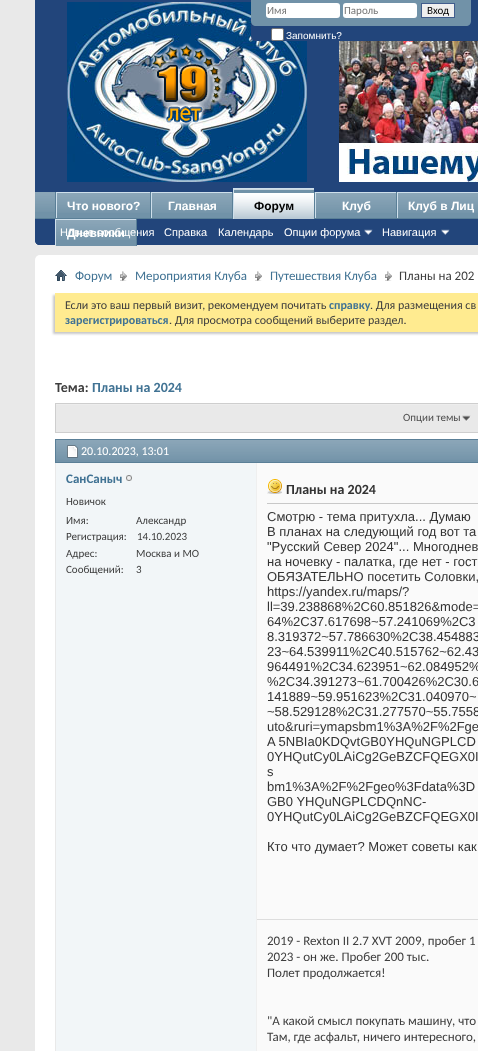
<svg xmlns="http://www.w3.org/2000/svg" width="478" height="1051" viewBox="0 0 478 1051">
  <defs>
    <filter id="blur1" x="-50%" y="-200%" width="200%" height="500%"><feGaussianBlur stdDeviation="1"/></filter>
  </defs>
  <rect width="100%" height="100%" fill="#e9e9e9"/>
  <path d="M35 0H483V240C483 243 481 245 478 245H40C37 245 35 243 35 240Z" fill="#22457b"/>
  <image x="67" y="2" width="240" height="180" href="img1.png"/>
  <image x="339" y="41" width="139" height="102" href="img2.png"/>
  <image x="339" y="143" width="139" height="39" href="img3.png"/>
  <path d="M251 0H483V36C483 39 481 41 478 41H256C253 41 251 39 251 36Z" fill="#22457b"/>
  <path d="M251 0H471V21C471 24 469 26 466 26H256C253 26 251 24 251 21Z" fill="#7192a8"/>
  <rect x="266" y="3" width="74" height="15" rx="3" fill="#ffffff"/>
  <text x="267" y="14" font-family="Carlito" font-size="11" fill="#777777">Имя</text>
  <rect x="343" y="3" width="74" height="15" rx="3" fill="#ffffff"/>
  <text x="344" y="14" font-family="Carlito" font-size="11" fill="#777777">Пароль</text>
  <rect x="421.5" y="3.5" width="33" height="14" fill="#efefef" stroke="#415d8d"/>
  <text x="427" y="14" font-family="Carlito" font-size="11" fill="#000000">Вход</text>
  <rect x="271.5" y="28.5" width="12" height="12" rx="1.5" fill="#ffffff" stroke="#767676"/>
  <text x="286" y="39" font-family="Liberation Sans" font-size="10" fill="#ffffff">Запомнить?</text>
  <path d="M35 192H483V240C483 243 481 245 478 245H40C37 245 35 243 35 240Z" fill="#22457b"/>
  <rect x="35" y="192" width="20" height="26" fill="#7192a8"/>
  <image x="35" y="192" width="20" height="20" href="img4.png"/>
  <rect x="314" y="192" width="1" height="26" fill="#5a7f97"/>
  <rect x="150" y="192" width="1" height="27" fill="#5a7f97"/>
  <rect x="55" y="192" width="1" height="27" fill="#5a7f97"/>
  <rect x="56" y="192" width="94" height="1" fill="#cedfeb"/>
  <rect x="56" y="192" width="1" height="27" fill="#cedfeb"/>
  <rect x="232" y="192" width="1" height="27" fill="#5a7f97"/>
  <rect x="151" y="192" width="81" height="1" fill="#cedfeb"/>
  <rect x="151" y="192" width="1" height="27" fill="#cedfeb"/>
  <rect x="396" y="192" width="1" height="27" fill="#5a7f97"/>
  <rect x="315" y="192" width="81" height="1" fill="#cedfeb"/>
  <rect x="315" y="192" width="1" height="27" fill="#cedfeb"/>
  <rect x="397" y="192" width="81" height="1" fill="#cedfeb"/>
  <rect x="397" y="192" width="1" height="27" fill="#cedfeb"/>
  <rect x="35" y="218" width="443" height="1" fill="#5a7f97"/>
  <rect x="234" y="189" width="80" height="30" fill="#7192a8"/>
  <image x="234" y="189" width="80" height="30" href="img5.png"/>
  <rect x="233" y="188" width="81" height="1" fill="#cedfeb"/>
  <rect x="233" y="188" width="1" height="31" fill="#cedfeb"/>
  <text x="254" y="210" font-family="Liberation Sans" font-size="12" font-weight="bold" fill="#000000">Форум</text>
  <rect x="136" y="219" width="1" height="27" fill="#5a7f97"/>
  <rect x="56" y="220" width="80" height="26" fill="#7192a8"/>
  <image x="56" y="220" width="80" height="20" href="img8.png"/>
  <text x="67" y="237" font-family="Liberation Sans" font-size="12" font-weight="bold" fill="#ffffff">Дневники</text>
  <text x="60" y="236" font-family="Liberation Sans" font-size="11" fill="#ffffff">Новые сообщения</text>
  <text x="164" y="236" font-family="Liberation Sans" font-size="11" fill="#ffffff">Справка</text>
  <text x="218" y="236" font-family="Liberation Sans" font-size="11" fill="#ffffff">Календарь</text>
  <text x="284" y="236" font-family="Liberation Sans" font-size="11" fill="#ffffff">Опции форума</text>
  <image x="364" y="229" width="9" height="6" href="img6.png"/>
  <text x="382" y="236" font-family="Liberation Sans" font-size="11" fill="#ffffff">Навигация</text>
  <image x="441" y="229" width="9" height="6" href="img6.png"/>
  <rect x="57" y="193" width="93" height="25" fill="#7192a8"/>
  <image x="57" y="193" width="93" height="20" href="img7.png"/>
  <text x="67" y="210" font-family="Liberation Sans" font-size="12" font-weight="bold" fill="#ffffff">Что нового?</text>
  <rect x="152" y="193" width="80" height="25" fill="#7192a8"/>
  <image x="152" y="193" width="80" height="20" href="img8.png"/>
  <text x="168" y="210" font-family="Liberation Sans" font-size="12" font-weight="bold" fill="#ffffff">Главная</text>
  <rect x="316" y="193" width="80" height="25" fill="#7192a8"/>
  <image x="316" y="193" width="80" height="20" href="img8.png"/>
  <text x="342" y="210" font-family="Liberation Sans" font-size="12" font-weight="bold" fill="#ffffff">Клуб</text>
  <rect x="398" y="193" width="80" height="25" fill="#7192a8"/>
  <image x="398" y="193" width="80" height="20" href="img8.png"/>
  <text x="408" y="210" font-family="Liberation Sans" font-size="12" font-weight="bold" fill="#ffffff">Клуб в Лиц</text>
  <rect x="55" y="219" width="81" height="1" fill="#cedfeb"/>
  <rect x="55" y="219" width="1" height="27" fill="#cedfeb"/>
  <rect x="35" y="255" width="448" height="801" rx="5" fill="#ffffff"/>
  <image x="55" y="270" width="12" height="11" href="img9.png"/>
  <image x="120" y="271" width="7" height="10" href="img10.png"/>
  <text x="75" y="280" font-family="Carlito" font-size="13" fill="#417394">Форум</text>
  <image x="255" y="271" width="7" height="10" href="img10.png"/>
  <text x="135" y="280" font-family="Carlito" font-size="13" fill="#417394">Мероприятия Клуба</text>
  <image x="385" y="271" width="7" height="10" href="img10.png"/>
  <text x="270" y="280" font-family="Carlito" font-size="13" fill="#417394">Путешествия Клуба</text>
  <text x="399" y="280" font-family="Carlito" font-size="13" fill="#3e3e3e">Планы на 202</text>
  <rect x="53" y="295" width="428" height="39" fill="#c8c8c8" filter="url(#blur1)"/>
  <rect x="55" y="293" width="423" height="39" fill="#ffeb90"/>
  <text x="65" y="309" font-family="Carlito" font-size="12" fill="#3e3e3e">Если это ваш первый визит, рекомендуем почитать</text>
  <text x="329" y="309" font-family="Carlito" font-size="12" font-weight="bold" fill="#417394">справку</text>
  <text x="370" y="309" font-family="Carlito" font-size="12" fill="#3e3e3e">. Для размещения св</text>
  <text x="65" y="324" font-family="Carlito" font-size="12" font-weight="bold" fill="#417394">зарегистрироваться</text>
  <text x="169" y="324" font-family="Carlito" font-size="12" fill="#3e3e3e">. Для просмотра сообщений выберите раздел.</text>
  <text x="55" y="392" font-family="Carlito" font-size="14" font-weight="bold" fill="#3e3e3e">Тема:</text>
  <text x="92" y="392" font-family="Carlito" font-size="14" font-weight="bold" fill="#417394">Планы на 2024</text>
  <rect x="56" y="405" width="422" height="27" fill="#e9e9e9"/>
  <rect x="55" y="404" width="423" height="1" fill="#ededed"/>
  <rect x="55.5" y="403.5" width="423" height="29" fill="none" stroke="#cecece"/>
  <image x="462" y="415" width="9" height="7" href="img11.png"/>
  <text x="403" y="421" font-family="Carlito" font-size="11" fill="#4e4e4e">Опции темы</text>
  <rect x="55.5" y="439.5" width="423" height="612" fill="none" stroke="#e9e9e9"/>
  <rect x="56" y="440" width="422" height="22" fill="#7192a8"/>
  <image x="56" y="440" width="422" height="20" href="img12.png"/>
  <rect x="55.5" y="439.5" width="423" height="23" fill="none" stroke="#5a7f97"/>
  <image x="67" y="445" width="11" height="13" href="img13.png"/>
  <text x="81" y="455" font-family="Carlito" font-size="12" fill="#ffffff">20.10.2023, 13:01</text>
  <rect x="56" y="463" width="200" height="588" fill="#f2f6f8"/>
  <text x="66" y="483" font-family="Carlito" font-size="13" font-weight="bold" fill="#417394">СанСаныч</text>
  <image x="126" y="475" width="6" height="6" href="img14.png"/>
  <text x="66" y="505" font-family="Carlito" font-size="11" fill="#3e3e3e">Новичок</text>
  <text x="66" y="524" font-family="Carlito" font-size="11" fill="#3e3e3e">Имя:</text>
  <text x="136" y="524" font-family="Carlito" font-size="11" fill="#3e3e3e">Александр</text>
  <text x="66" y="540" font-family="Carlito" font-size="11" fill="#3e3e3e">Регистрация:</text>
  <text x="137" y="540" font-family="Carlito" font-size="11" fill="#3e3e3e">14.10.2023</text>
  <text x="66" y="557" font-family="Carlito" font-size="11" fill="#3e3e3e">Адрес:</text>
  <text x="136" y="557" font-family="Carlito" font-size="11" fill="#3e3e3e">Москва и МО</text>
  <text x="66" y="573" font-family="Carlito" font-size="11" fill="#3e3e3e">Сообщений:</text>
  <text x="136" y="573" font-family="Carlito" font-size="11" fill="#3e3e3e">3</text>
  <rect x="257" y="463" width="221" height="588" fill="#fafafa"/>
  <rect x="256" y="463" width="1" height="588" fill="#efefef"/>
  <rect x="267" y="503" width="211" height="1" fill="#c8c8c8"/>
  <image x="267" y="479" width="15" height="15" href="img15.png"/>
  <text x="286" y="494" font-family="Carlito" font-size="14" font-weight="bold" fill="#333333">Планы на 2024</text>
  <text x="267" y="521" font-family="Liberation Sans" font-size="13" fill="#333333">Смотрю - тема притухла... Думаю</text>
  <text x="267" y="536" font-family="Liberation Sans" font-size="13" fill="#333333">В планах на следующий год вот та</text>
  <text x="267" y="551" font-family="Liberation Sans" font-size="13" fill="#333333">"Русский Север 2024"... Многоднев</text>
  <text x="267" y="566" font-family="Liberation Sans" font-size="13" fill="#333333">на ночевку - палатка, где нет - гост</text>
  <text x="267" y="581" font-family="Liberation Sans" font-size="13" fill="#333333">ОБЯЗАТЕЛЬНО посетить Соловки,</text>
  <text x="267" y="596" font-family="Liberation Sans" font-size="13" fill="#333333">https://yandex.ru/maps/?</text>
  <text x="267" y="611" font-family="Liberation Sans" font-size="13" fill="#333333">ll=39.238868%2C60.851826&amp;mode=</text>
  <text x="267" y="626" font-family="Liberation Sans" font-size="13" fill="#333333">64%2C37.617698~57.241069%2C3</text>
  <text x="267" y="641" font-family="Liberation Sans" font-size="13" fill="#333333">8.319372~57.786630%2C38.454883</text>
  <text x="267" y="656" font-family="Liberation Sans" font-size="13" fill="#333333">23~64.539911%2C40.515762~62.43</text>
  <text x="267" y="671" font-family="Liberation Sans" font-size="13" fill="#333333">964491%2C34.623951~62.084952%</text>
  <text x="267" y="686" font-family="Liberation Sans" font-size="13" fill="#333333">%2C34.391273~61.700426%2C30.6</text>
  <text x="267" y="701" font-family="Liberation Sans" font-size="13" fill="#333333">141889~59.951623%2C31.040970~</text>
  <text x="267" y="716" font-family="Liberation Sans" font-size="13" fill="#333333">~58.529128%2C31.277570~55.7558</text>
  <text x="267" y="731" font-family="Liberation Sans" font-size="13" fill="#333333">uto&amp;ruri=ymapsbm1%3A%2F%2Fge</text>
  <text x="267" y="746" font-family="Liberation Sans" font-size="13" fill="#333333">A 5NBIa0KDQvtGB0YHQuNGPLCD</text>
  <text x="267" y="761" font-family="Liberation Sans" font-size="13" fill="#333333">0YHQutCy0LAiCg2GeBZCFQEGX0I</text>
  <text x="267" y="776" font-family="Liberation Sans" font-size="13" fill="#333333">s</text>
  <text x="267" y="791" font-family="Liberation Sans" font-size="13" fill="#333333">bm1%3A%2F%2Fgeo%3Fdata%3D</text>
  <text x="267" y="806" font-family="Liberation Sans" font-size="13" fill="#333333">GB0 YHQuNGPLCDQnNC-</text>
  <text x="267" y="821" font-family="Liberation Sans" font-size="13" fill="#333333">0YHQutCy0LAiCg2GeBZCFQEGX0I</text>
  <text x="267" y="851" font-family="Liberation Sans" font-size="13" fill="#333333">Кто что думает? Может советы как</text>
  <rect x="257" y="919" width="221" height="1" fill="#dddddd"/>
  <text x="267" y="945" font-family="Carlito" font-size="13" fill="#3e3e3e">2019 - Rexton II 2.7 XVT 2009, пробег 1</text>
  <text x="267" y="961" font-family="Carlito" font-size="13" fill="#3e3e3e">2023 - он же. Пробег 200 тыс.</text>
  <text x="267" y="977" font-family="Carlito" font-size="13" fill="#3e3e3e">Полет продолжается!</text>
  <text x="267" y="1025" font-family="Carlito" font-size="13" fill="#3e3e3e">"А какой смысл покупать машину, что</text>
  <text x="267" y="1041" font-family="Carlito" font-size="13" fill="#3e3e3e">Там, где асфальт, ничего интересного,</text>
</svg>
